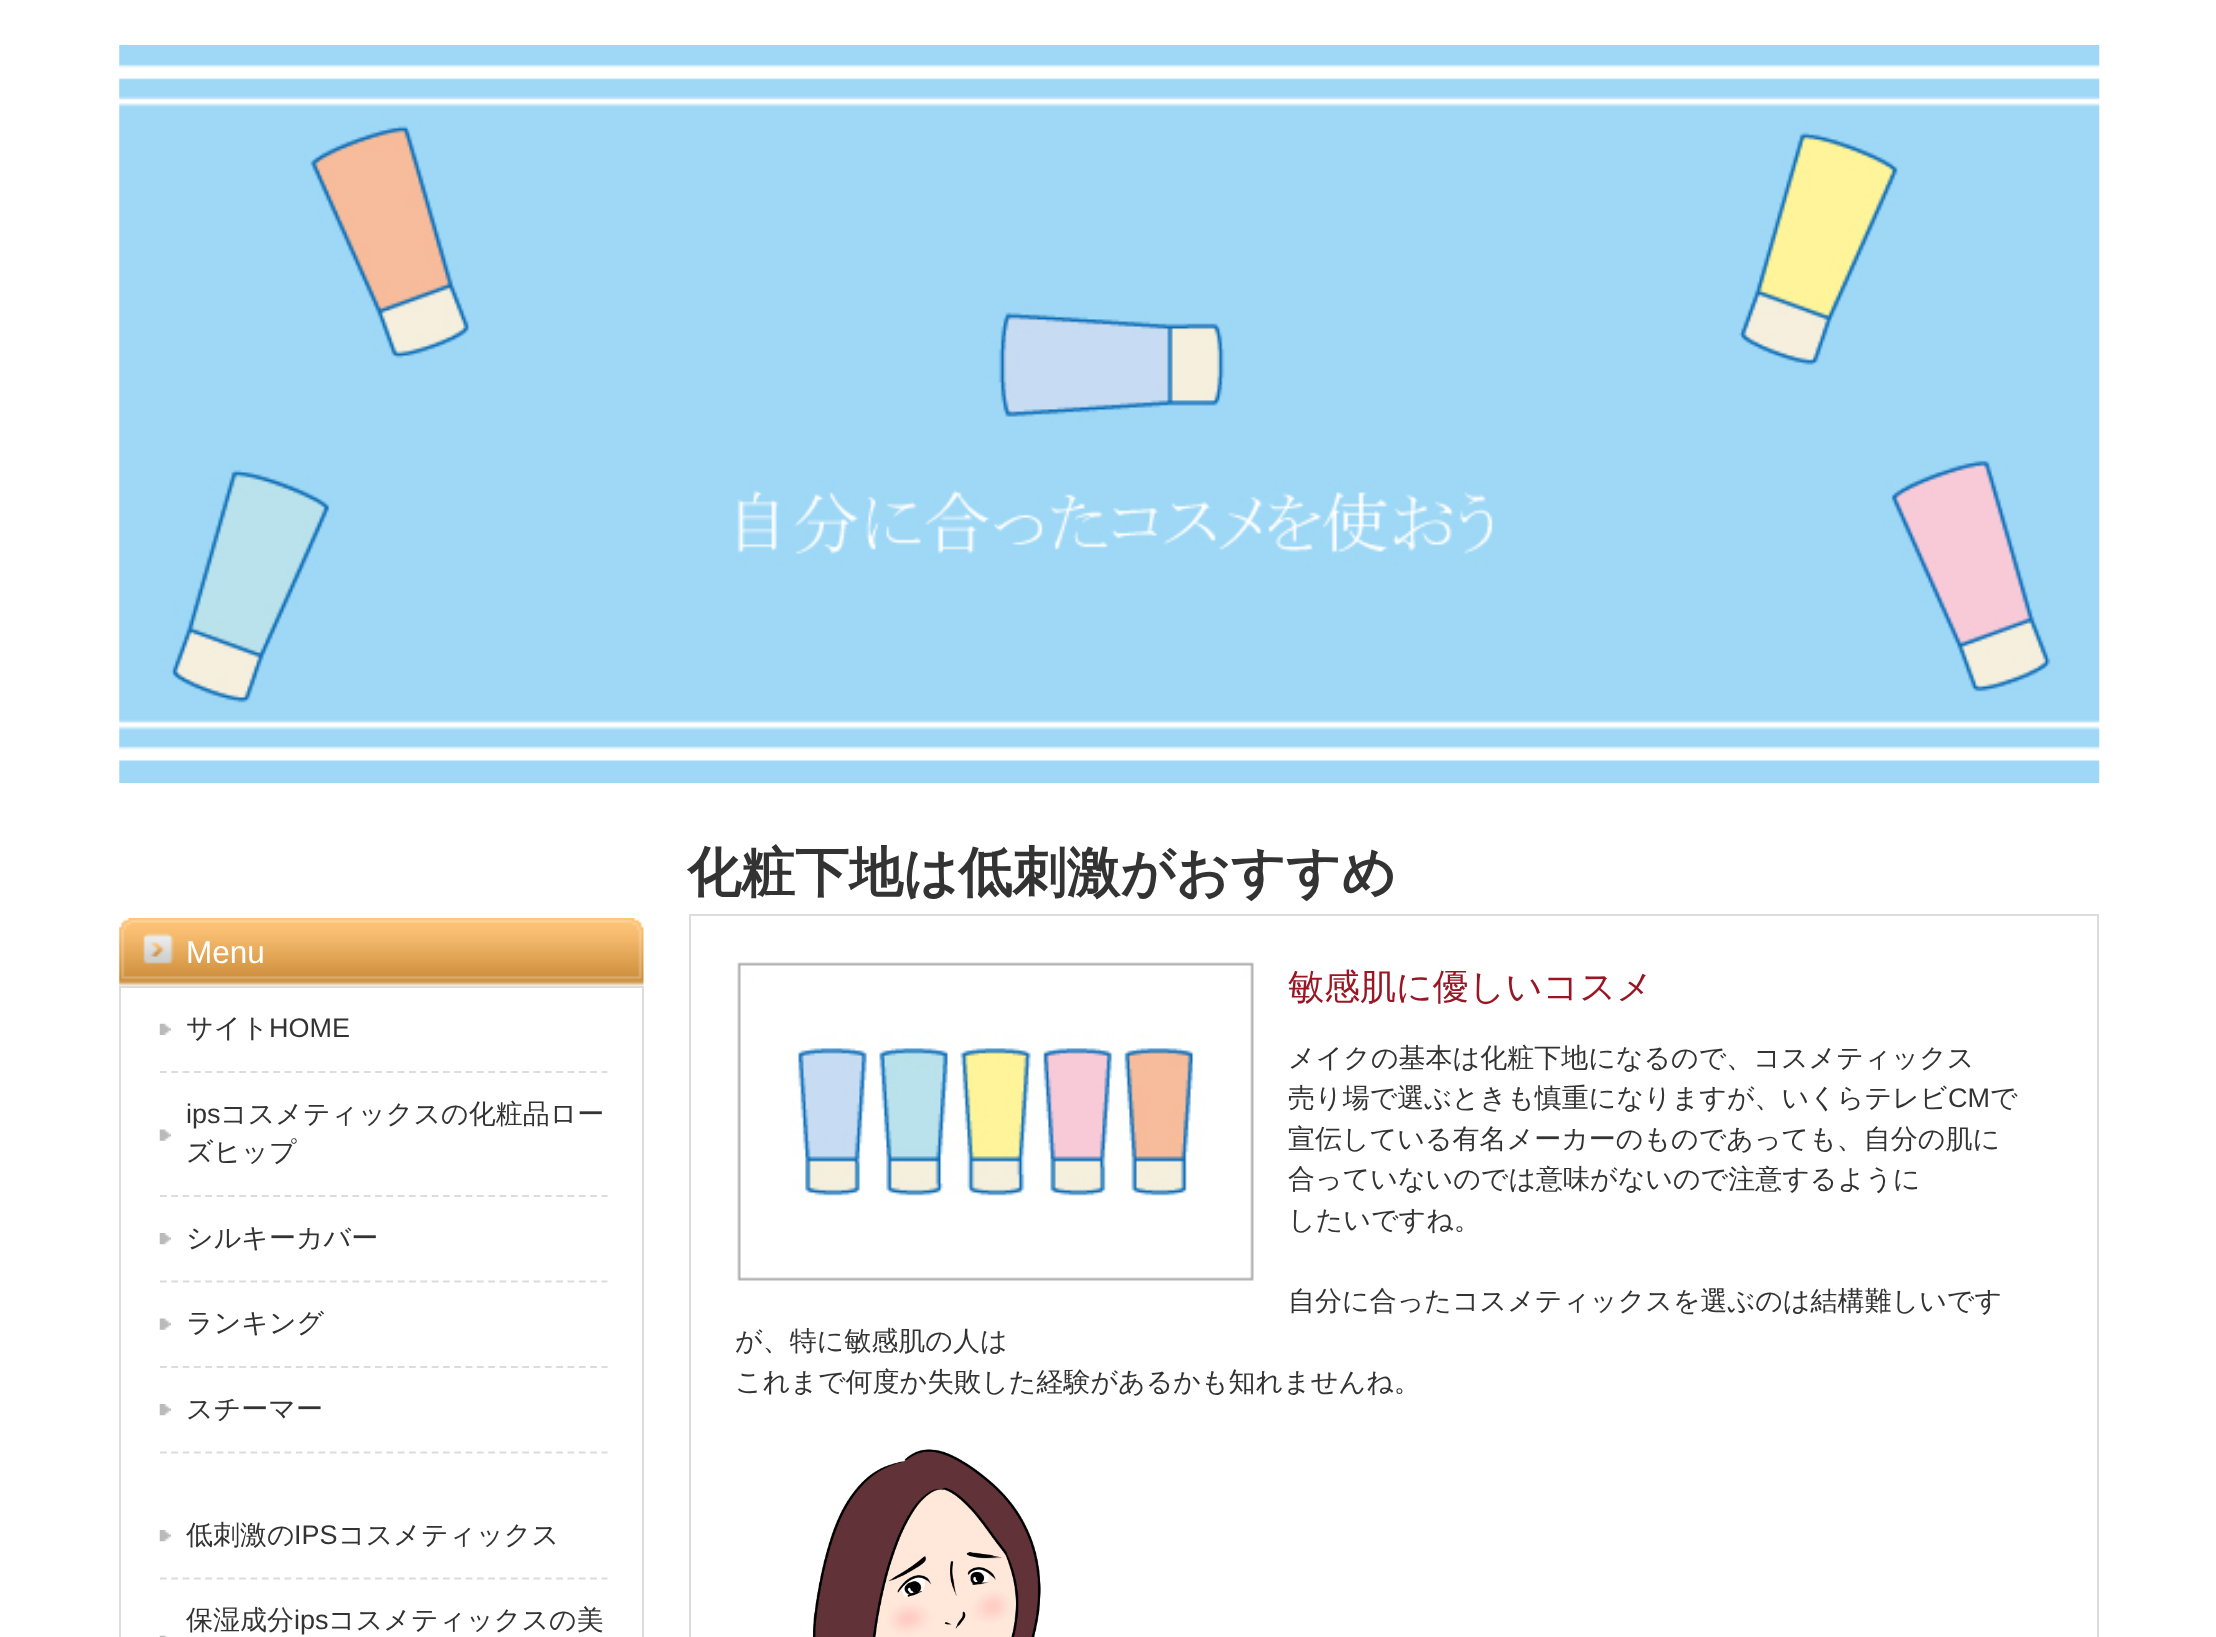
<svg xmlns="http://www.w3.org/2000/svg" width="2216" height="1637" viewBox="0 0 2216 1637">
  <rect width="100%" height="100%" fill="#ffffff"/>
  <image x="119" y="45" width="1981" height="738" href="img1.png"/>
  <image x="119" y="918" width="525" height="68" href="img2.png"/>
  <text x="186" y="963" font-family="Liberation Sans" font-size="31.5" fill="#ffffff">Menu</text>
  <rect x="120" y="987" width="523" height="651" fill="none" stroke="#dcdcdc" stroke-width="2"/>
  <path d="M160 1072H607.5" fill="none" stroke="#dcdcdc" stroke-width="2.2" stroke-dasharray="6.75 4.57"/>
  <image x="159" y="1023" width="12" height="12" href="img3.png"/>
  <text x="186" y="1037" font-family="WenQuanYi Zen Hei" font-size="27" font-weight="500" fill="#333333">サイト</text>
  <text x="269" y="1037" font-family="Liberation Sans" font-size="27" fill="#333333">HOME</text>
  <path d="M160 1196H607.5" fill="none" stroke="#dcdcdc" stroke-width="2.2" stroke-dasharray="6.75 4.57"/>
  <image x="159" y="1129" width="12" height="12" href="img4.png"/>
  <text x="186" y="1123" font-family="Liberation Sans" font-size="27" fill="#333333">ips</text>
  <text x="220" y="1123" font-family="WenQuanYi Zen Hei" font-size="27" font-weight="500" fill="#333333">コスメティックスの化粧品ロー</text>
  <text x="186" y="1161" font-family="WenQuanYi Zen Hei" font-size="27" font-weight="500" fill="#333333">ズヒップ</text>
  <path d="M160 1281.5H607.5" fill="none" stroke="#dcdcdc" stroke-width="2.2" stroke-dasharray="6.75 4.57"/>
  <image x="159" y="1233" width="12" height="12" href="img5.png"/>
  <text x="186" y="1247" font-family="WenQuanYi Zen Hei" font-size="27" font-weight="500" fill="#333333">シルキーカバー</text>
  <path d="M160 1367H607.5" fill="none" stroke="#dcdcdc" stroke-width="2.2" stroke-dasharray="6.75 4.57"/>
  <image x="159" y="1318" width="12" height="12" href="img4.png"/>
  <text x="186" y="1332" font-family="WenQuanYi Zen Hei" font-size="27" font-weight="500" fill="#333333">ランキング</text>
  <path d="M160 1452.5H607.5" fill="none" stroke="#dcdcdc" stroke-width="2.2" stroke-dasharray="6.75 4.57"/>
  <image x="159" y="1404" width="12" height="12" href="img5.png"/>
  <text x="186" y="1418" font-family="WenQuanYi Zen Hei" font-size="27" font-weight="500" fill="#333333">スチーマー</text>
  <path d="M160 1578.5H607.5" fill="none" stroke="#dcdcdc" stroke-width="2.2" stroke-dasharray="6.75 4.57"/>
  <image x="159" y="1530" width="12" height="12" href="img6.png"/>
  <text x="186" y="1544" font-family="WenQuanYi Zen Hei" font-size="27" font-weight="500" fill="#333333">低刺激の</text>
  <text x="294" y="1544" font-family="Liberation Sans" font-size="27" fill="#333333">IPS</text>
  <text x="338" y="1544" font-family="WenQuanYi Zen Hei" font-size="27" font-weight="500" fill="#333333">コスメティックス</text>
  <image x="159" y="1635" width="8" height="2" href="img7.png"/>
  <text x="186" y="1629" font-family="WenQuanYi Zen Hei" font-size="27" font-weight="500" fill="#333333">保湿成分</text>
  <text x="294" y="1629" font-family="Liberation Sans" font-size="27" fill="#333333">ips</text>
  <text x="328" y="1629" font-family="WenQuanYi Zen Hei" font-size="27" font-weight="500" fill="#333333">コスメティックスの美</text>
  <text x="687" y="891" font-family="WenQuanYi Zen Hei" font-size="54" font-weight="bold" fill="#333333">化粧下地は低刺激がおすすめ</text>
  <rect x="690" y="915" width="1408" height="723" fill="none" stroke="#dcdcdc" stroke-width="2"/>
  <image x="737" y="962" width="517" height="319" href="img8.png"/>
  <text x="1288" y="999" font-family="WenQuanYi Zen Hei" font-size="36" font-weight="500" fill="#991725">敏感肌に優しいコスメ</text>
  <text x="1288" y="1067" font-family="WenQuanYi Zen Hei" font-size="27" font-weight="500" fill="#333333">メイクの基本は化粧下地になるので、コスメティックス</text>
  <text x="1288" y="1107" font-family="WenQuanYi Zen Hei" font-size="27" font-weight="500" fill="#333333">売り場で選ぶときも慎重になりますが、いくらテレビ</text>
  <text x="1948" y="1107" font-family="Liberation Sans" font-size="27" fill="#333333">CM</text>
  <text x="1990" y="1107" font-family="WenQuanYi Zen Hei" font-size="27" font-weight="500" fill="#333333">で</text>
  <text x="1288" y="1148" font-family="WenQuanYi Zen Hei" font-size="27" font-weight="500" fill="#333333">宣伝している有名メーカーのものであっても、自分の肌に</text>
  <text x="1288" y="1188" font-family="WenQuanYi Zen Hei" font-size="27" font-weight="500" fill="#333333">合っていないのでは意味がないので注意するように</text>
  <text x="1288" y="1229" font-family="WenQuanYi Zen Hei" font-size="27" font-weight="500" fill="#333333">したいですね。</text>
  <text x="1288" y="1310" font-family="WenQuanYi Zen Hei" font-size="27" font-weight="500" fill="#333333">自分に合ったコスメティックスを選ぶのは結構難しいです</text>
  <text x="735" y="1350" font-family="WenQuanYi Zen Hei" font-size="27" font-weight="500" fill="#333333">が、特に敏感肌の人は</text>
  <text x="735" y="1391" font-family="WenQuanYi Zen Hei" font-size="27" font-weight="500" fill="#333333">これまで何度か失敗した経験があるかも知れませんね。</text>
  <image x="812" y="1449" width="229" height="188" href="img9.png"/>
</svg>
